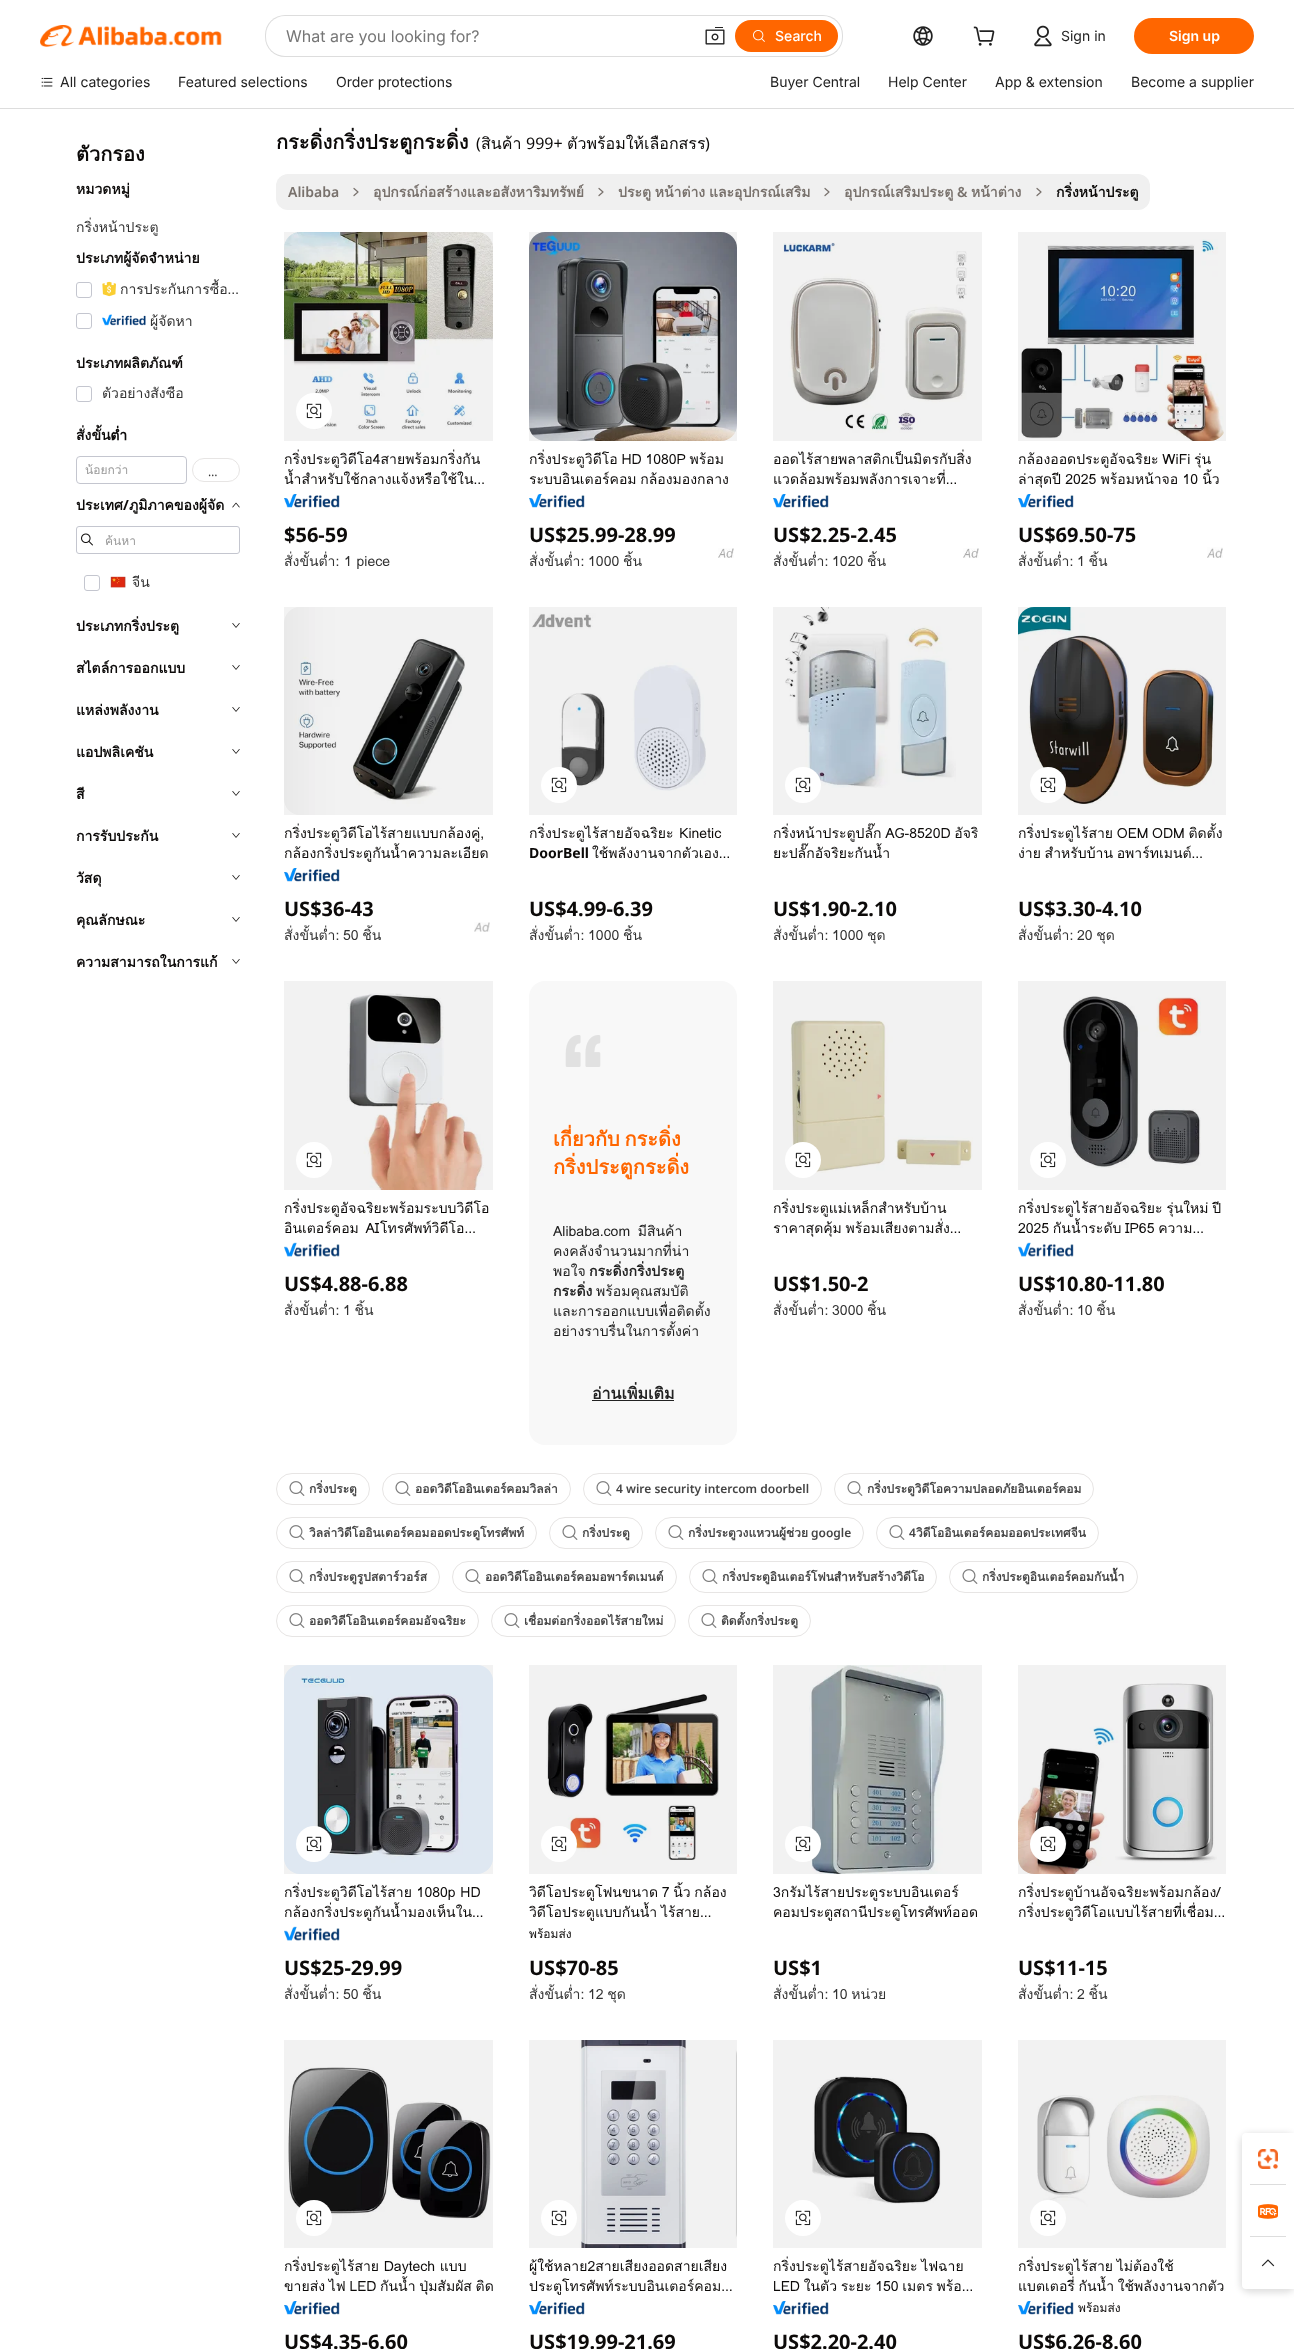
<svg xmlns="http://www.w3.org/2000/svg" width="1294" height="2349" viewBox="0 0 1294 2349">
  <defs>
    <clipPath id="clip1"><rect x="150" y="311" width="43" height="19"/></clipPath>
    <clipPath id="clip2"><rect x="102" y="386" width="82" height="14"/></clipPath>
    <clipPath id="clip3"><rect x="76" y="414" width="51" height="42"/></clipPath>
    <clipPath id="clip4"><rect x="85" y="460" width="93" height="19"/></clipPath>
    <clipPath id="clip5"><rect x="105" y="531" width="126" height="19"/></clipPath>
    <clipPath id="clip6"><rect x="132" y="572" width="18" height="20"/></clipPath>
    <clipPath id="clip7"><rect x="76" y="773" width="9" height="42"/></clipPath>
    <clipPath id="clip8"><rect x="76" y="857" width="26" height="42"/></clipPath>
    <clipPath id="clip9"><rect x="76" y="899" width="69" height="42"/></clipPath>
    <clipPath id="clip10"><rect x="284" y="449" width="209" height="40"/></clipPath>
    <clipPath id="clip11"><rect x="1018" y="449" width="208" height="40"/></clipPath>
    <clipPath id="clip12"><rect x="1018" y="823" width="208" height="40"/></clipPath>
    <clipPath id="clip13"><rect x="284" y="1198" width="209" height="40"/></clipPath>
    <clipPath id="clip14"><rect x="529" y="1882" width="208" height="40"/></clipPath>
    <clipPath id="clip15"><rect x="284" y="2256" width="209" height="40"/></clipPath>
    <clipPath id="clip16"><rect x="529" y="2256" width="208" height="40"/></clipPath>
    <filter id="blur1" x="-50%" y="-200%" width="200%" height="500%"><feGaussianBlur stdDeviation="3"/></filter>
  </defs>
  <rect width="100%" height="100%" fill="#ffffff"/>
  <rect x="0" y="108" width="1294" height="1" fill="#dddddd"/>
  <image x="40" y="25" width="182" height="22" href="img1.png"/>
  <rect x="265" y="15" width="578" height="42" rx="20" fill="#dddddd"/>
  <rect x="266" y="16" width="576" height="40" rx="19" fill="#ffffff"/>
  <text x="286" y="42" font-family="Inter" font-size="16" fill="#767676">What are you looking for?</text>
  <image x="705" y="27" width="20" height="18" href="img2.png"/>
  <rect x="735" y="20" width="103" height="32" rx="16" fill="#ff6600"/>
  <image x="753" y="30" width="12" height="12" href="img3.png"/>
  <text x="775" y="41" font-family="Inter" font-size="14" font-weight="500" fill="#ffffff">Search</text>
  <image x="913" y="26" width="20" height="20" href="img4.png"/>
  <image x="973" y="26" width="22" height="20" href="img5.png"/>
  <image x="1034" y="25" width="18" height="22" href="img6.png"/>
  <text x="1061" y="41" font-family="Inter" font-size="14" fill="#222222">Sign in</text>
  <rect x="1134" y="18" width="120" height="36" rx="18" fill="#ff6600"/>
  <text x="1169" y="41" font-family="Inter" font-size="14" font-weight="600" fill="#ffffff">Sign up</text>
  <image x="41" y="77" width="12" height="10" href="img7.png"/>
  <text x="60" y="87" font-family="Inter" font-size="14" fill="#222222">All categories</text>
  <text x="178" y="87" font-family="Inter" font-size="14" fill="#222222">Featured selections</text>
  <text x="336" y="87" font-family="Inter" font-size="14" fill="#222222">Order protections</text>
  <text x="770" y="87" font-family="Inter" font-size="14" fill="#222222">Buyer Central</text>
  <text x="888" y="87" font-family="Inter" font-size="14" fill="#222222">Help Center</text>
  <text x="995" y="87" font-family="Inter" font-size="14" fill="#222222">App &amp; extension</text>
  <text x="1131" y="87" font-family="Inter" font-size="14" fill="#222222">Become a supplier</text>
  <text x="76" y="161" font-family="Loma" font-size="20" font-weight="bold" fill="#0c0a09">ตัวกรอง</text>
  <text x="76" y="194" font-family="Loma" font-size="14" font-weight="bold" fill="#0c0a09">หมวดหมู่</text>
  <text x="76" y="232" font-family="Loma" font-size="14" fill="#333333">กริ่งหน้าประตู</text>
  <text x="76" y="263" font-family="Loma" font-size="14" font-weight="bold" fill="#0c0a09">ประเภทผู้จัดจำหน่าย</text>
  <rect x="76.5" y="282.5" width="15" height="15" rx="2.5" fill="none" stroke="#c4c6cf"/>
  <image x="102" y="281" width="14" height="16" href="img8.png"/>
  <text x="120" y="294" font-family="Loma" font-size="14" fill="#333333">การประกันการซื้อ…</text>
  <rect x="76.5" y="313.5" width="15" height="15" rx="2.5" fill="none" stroke="#c4c6cf"/>
  <image x="102" y="314" width="44" height="12" href="img9.png"/>
  <g clip-path="url(#clip1)">
    <text x="150" y="326" font-family="Loma" font-size="14" fill="#333333">ผู้จัดหา</text>
  </g>
  <text x="76" y="368" font-family="Loma" font-size="14" font-weight="bold" fill="#0c0a09">ประเภทผลิตภัณฑ์</text>
  <rect x="76.5" y="386.5" width="15" height="15" rx="2.5" fill="none" stroke="#c4c6cf"/>
  <g clip-path="url(#clip2)">
    <text x="102" y="398" font-family="Loma" font-size="14" fill="#333333">ตัวอย่างสั่งซื้อ</text>
  </g>
  <g clip-path="url(#clip3)">
    <text x="76" y="440" font-family="Loma" font-size="14" font-weight="bold" fill="#0c0a09">สั่งขั้นต่ำ</text>
  </g>
  <rect x="76.5" y="456.5" width="110" height="27" rx="3.5" fill="none" stroke="#c4c6cf"/>
  <g clip-path="url(#clip4)">
    <text x="85" y="474" font-family="Loma" font-size="12" fill="#999999">น้อยกว่า</text>
  </g>
  <rect x="192.5" y="458.5" width="47" height="23" rx="11.5" fill="none" stroke="#e7e5e4"/>
  <text x="208" y="476" font-family="Noto Sans" font-size="12" fill="#333333">…</text>
  <text x="76" y="510" font-family="Loma" font-size="14" font-weight="bold" fill="#0c0a09">ประเทศ</text>
  <text x="123" y="510" font-family="Noto Sans" font-size="14" font-weight="bold" fill="#0c0a09">/</text>
  <text x="129" y="510" font-family="Loma" font-size="14" font-weight="bold" fill="#0c0a09">ภูมิภาคของผู้จัด</text>
  <image x="232" y="502" width="8" height="6" href="img10.png"/>
  <rect x="76.5" y="526.5" width="163" height="27" rx="2.5" fill="none" stroke="#c4c6cf"/>
  <image x="81" y="533" width="12" height="13" href="img11.png"/>
  <g clip-path="url(#clip5)">
    <text x="105" y="545" font-family="Loma" font-size="12" fill="#999999">ค้นหา</text>
  </g>
  <rect x="84.5" y="575.5" width="15" height="15" rx="2.5" fill="none" stroke="#c4c6cf"/>
  <image x="110" y="576" width="16" height="12" href="img12.png"/>
  <g clip-path="url(#clip6)">
    <text x="132" y="587" font-family="Loma" font-size="14" fill="#333333">จีน</text>
  </g>
  <text x="76" y="631" font-family="Loma" font-size="14" font-weight="bold" fill="#0c0a09">ประเภทกริ่งประตู</text>
  <image x="232" y="623" width="8" height="5" href="img13.png"/>
  <text x="76" y="673" font-family="Loma" font-size="14" font-weight="bold" fill="#0c0a09">สไตล์การออกแบบ</text>
  <image x="232" y="665" width="8" height="5" href="img13.png"/>
  <text x="76" y="715" font-family="Loma" font-size="14" font-weight="bold" fill="#0c0a09">แหล่งพลังงาน</text>
  <image x="232" y="707" width="8" height="5" href="img13.png"/>
  <text x="76" y="757" font-family="Loma" font-size="14" font-weight="bold" fill="#0c0a09">แอปพลิเคชัน</text>
  <image x="232" y="749" width="8" height="5" href="img13.png"/>
  <g clip-path="url(#clip7)">
    <text x="76" y="799" font-family="Loma" font-size="14" font-weight="bold" fill="#0c0a09">สี</text>
  </g>
  <image x="232" y="791" width="8" height="5" href="img13.png"/>
  <text x="76" y="841" font-family="Loma" font-size="14" font-weight="bold" fill="#0c0a09">การรับประกัน</text>
  <image x="232" y="833" width="8" height="5" href="img13.png"/>
  <g clip-path="url(#clip8)">
    <text x="76" y="883" font-family="Loma" font-size="14" font-weight="bold" fill="#0c0a09">วัสดุ</text>
  </g>
  <image x="232" y="875" width="8" height="5" href="img13.png"/>
  <g clip-path="url(#clip9)">
    <text x="76" y="925" font-family="Loma" font-size="14" font-weight="bold" fill="#0c0a09">คุณลักษณะ</text>
  </g>
  <image x="232" y="917" width="8" height="5" href="img13.png"/>
  <text x="76" y="967" font-family="Loma" font-size="14" font-weight="bold" fill="#0c0a09">ความสามารถในการแก้</text>
  <image x="232" y="959" width="8" height="5" href="img13.png"/>
  <text x="276" y="149" font-family="Loma" font-size="20" font-weight="bold" fill="#0c0a09">กระดิ่งกริ่งประตูกระดิ่ง</text>
  <text x="476" y="149" font-family="Noto Sans" font-size="16" fill="#0c0a09">(</text>
  <text x="481" y="149" font-family="Loma" font-size="16" fill="#0c0a09">สินค้า</text>
  <text x="526" y="149" font-family="Noto Sans" font-size="16" fill="#0c0a09">999+</text>
  <text x="567" y="149" font-family="Loma" font-size="16" fill="#0c0a09">ตัวพร้อมให้เลือกสรร</text>
  <text x="705" y="149" font-family="Noto Sans" font-size="16" fill="#0c0a09">)</text>
  <rect x="276" y="174" width="874" height="36" rx="12" fill="#f0f0f0"/>
  <text x="288" y="197" font-family="Noto Sans" font-size="14" font-weight="600" fill="#78716c">Alibaba</text>
  <path d="M354 195.5L358 192L354 188.5" fill="none" stroke="#78716c" stroke-width="1.2" stroke-linecap="round" stroke-linejoin="round"/>
  <text x="373" y="197" font-family="Loma" font-size="14" font-weight="bold" fill="#78716c">อุปกรณ์ก่อสร้างและอสังหาริมทรัพย์</text>
  <path d="M599 195.5L603 192L599 188.5" fill="none" stroke="#78716c" stroke-width="1.2" stroke-linecap="round" stroke-linejoin="round"/>
  <text x="618" y="197" word-spacing="-1" font-family="Loma" font-size="14" font-weight="bold" fill="#78716c">ประตู หน้าต่าง และอุปกรณ์เสริม</text>
  <path d="M825 195.5L829 192L825 188.5" fill="none" stroke="#78716c" stroke-width="1.2" stroke-linecap="round" stroke-linejoin="round"/>
  <text x="844" y="197" font-family="Loma" font-size="14" font-weight="bold" fill="#78716c">อุปกรณ์เสริมประตู</text>
  <text x="957" y="197" font-family="Noto Sans" font-size="14" font-weight="600" fill="#78716c">&amp;</text>
  <text x="971" y="197" font-family="Loma" font-size="14" font-weight="bold" fill="#78716c">หน้าต่าง</text>
  <path d="M1037 195.5L1041 192L1037 188.5" fill="none" stroke="#78716c" stroke-width="1.2" stroke-linecap="round" stroke-linejoin="round"/>
  <text x="1056" y="197" font-family="Loma" font-size="14" font-weight="bold" fill="#0c0a09">กริ่งหน้าประตู</text>
  <image x="284" y="232" width="209" height="198" href="img14.png"/>
  <rect x="284" y="232" width="209" height="209" fill="#000000" fill-opacity="0.05"/>
  <circle cx="314" cy="411" r="18" fill="#ffffff"/>
  <image x="306" y="403" width="16" height="16" href="img15.png"/>
  <text x="284" y="464" font-family="Loma" font-size="14" fill="#0c0a09">กริ่งประตูวิดีโอ4สายพร้อมกริ่งกัน</text>
  <g clip-path="url(#clip10)">
    <text x="284" y="484" font-family="Loma" font-size="14" fill="#0c0a09">น้ำสำหรับใช้กลางแจ้งหรือใช้ใน…</text>
  </g>
  <image x="284" y="494" width="56" height="14" href="img16.png"/>
  <text x="284" y="542" font-family="Noto Sans" font-size="20" font-weight="bold" fill="#0c0a09">$56-59</text>
  <text x="284" y="566" font-family="Loma" font-size="14" fill="#333333">สั่งขั้นต่ำ: 1 piece</text>
  <image x="529" y="232" width="208" height="209" href="img17.png"/>
  <rect x="529" y="232" width="208" height="209" fill="#000000" fill-opacity="0.05"/>
  <text x="529" y="464" word-spacing="-1" font-family="Loma" font-size="14" fill="#0c0a09">กริ่งประตูวิดีโอ HD 1080P พร้อม</text>
  <text x="529" y="484" word-spacing="-1" font-family="Loma" font-size="14" fill="#0c0a09">ระบบอินเตอร์คอม กล้องมองกลาง</text>
  <image x="529" y="494" width="56" height="14" href="img16.png"/>
  <text x="529" y="542" font-family="Noto Sans" font-size="20" font-weight="bold" fill="#0c0a09">US$25.99-28.99</text>
  <text x="529" y="566" word-spacing="-1" font-family="Loma" font-size="14" fill="#333333">สั่งขั้นต่ำ: 1000 ชิ้น</text>
  <image x="718" y="548" width="16" height="10" href="img18.png"/>
  <image x="783" y="242" width="184" height="191" href="img19.png"/>
  <rect x="773" y="232" width="209" height="209" fill="#000000" fill-opacity="0.05"/>
  <text x="773" y="464" font-family="Loma" font-size="14" fill="#0c0a09">ออดไร้สายพลาสติกเป็นมิตรกับสิ่ง</text>
  <text x="773" y="484" font-family="Loma" font-size="14" fill="#0c0a09">แวดล้อมพร้อมพลังการเจาะที่…</text>
  <image x="773" y="494" width="56" height="14" href="img16.png"/>
  <text x="773" y="542" font-family="Noto Sans" font-size="20" font-weight="bold" fill="#0c0a09">US$2.25-2.45</text>
  <text x="773" y="566" word-spacing="-1" font-family="Loma" font-size="14" fill="#333333">สั่งขั้นต่ำ: 1020 ชิ้น</text>
  <image x="963" y="548" width="16" height="10" href="img18.png"/>
  <image x="1021" y="239" width="203" height="202" href="img20.png"/>
  <rect x="1018" y="232" width="208" height="209" fill="#000000" fill-opacity="0.05"/>
  <text x="1018" y="464" word-spacing="-1" font-family="Loma" font-size="14" fill="#0c0a09">กล้องออดประตูอัจฉริยะ WiFi รุ่น</text>
  <g clip-path="url(#clip11)">
    <text x="1018" y="484" word-spacing="-0.5" font-family="Loma" font-size="14" fill="#0c0a09">ล่าสุดปี 2025 พร้อมหน้าจอ 10 นิ้ว</text>
  </g>
  <image x="1018" y="494" width="56" height="14" href="img16.png"/>
  <text x="1018" y="542" font-family="Noto Sans" font-size="20" font-weight="bold" fill="#0c0a09">US$69.50-75</text>
  <text x="1018" y="566" word-spacing="-1" font-family="Loma" font-size="14" fill="#333333">สั่งขั้นต่ำ: 1 ชิ้น</text>
  <image x="1207" y="547" width="16" height="11" href="img21.png"/>
  <image x="284" y="607" width="181" height="208" href="img22.png"/>
  <rect x="284" y="607" width="209" height="208" fill="#000000" fill-opacity="0.05"/>
  <text x="284" y="838" font-family="Loma" font-size="14" fill="#0c0a09">กริ่งประตูวิดีโอไร้สายแบบกล้องคู่,</text>
  <text x="284" y="858" font-family="Loma" font-size="14" fill="#0c0a09">กล้องกริ่งประตูกันน้ำความละเอียด</text>
  <image x="284" y="868" width="56" height="14" href="img16.png"/>
  <text x="284" y="916" font-family="Noto Sans" font-size="20" font-weight="bold" fill="#0c0a09">US$36-43</text>
  <text x="284" y="940" word-spacing="-1" font-family="Loma" font-size="14" fill="#333333">สั่งขั้นต่ำ: 50 ชิ้น</text>
  <image x="474" y="922" width="16" height="10" href="img23.png"/>
  <image x="532" y="613" width="174" height="178" href="img24.png"/>
  <rect x="529" y="607" width="208" height="208" fill="#000000" fill-opacity="0.05"/>
  <circle cx="559" cy="785" r="18" fill="#ffffff"/>
  <image x="551" y="777" width="16" height="16" href="img15.png"/>
  <text x="529" y="838" word-spacing="1" font-family="Loma" font-size="14" fill="#0c0a09">กริ่งประตูไร้สายอัจฉริยะ Kinetic</text>
  <text x="529" y="858" font-family="Noto Sans" font-size="14" font-weight="bold" fill="#0c0a09">DoorBell</text>
  <text x="592" y="858" font-family="Loma" font-size="14" fill="#0c0a09">ใช้พลังงานจากตัวเอง…</text>
  <text x="529" y="916" font-family="Noto Sans" font-size="20" font-weight="bold" fill="#0c0a09">US$4.99-6.39</text>
  <text x="529" y="940" word-spacing="-1" font-family="Loma" font-size="14" fill="#333333">สั่งขั้นต่ำ: 1000 ชิ้น</text>
  <image x="785" y="607" width="171" height="181" href="img25.png"/>
  <rect x="773" y="607" width="209" height="208" fill="#000000" fill-opacity="0.05"/>
  <circle cx="803" cy="785" r="18" fill="#ffffff"/>
  <image x="795" y="777" width="16" height="16" href="img15.png"/>
  <text x="773" y="838" word-spacing="-1" font-family="Loma" font-size="14" fill="#0c0a09">กริ่งหน้าประตูปลั๊ก AG-8520D อัจริ</text>
  <text x="773" y="858" font-family="Loma" font-size="14" fill="#0c0a09">ยะปลั๊กอัจริยะกันน้ำ</text>
  <text x="773" y="916" font-family="Noto Sans" font-size="20" font-weight="bold" fill="#0c0a09">US$1.90-2.10</text>
  <text x="773" y="940" word-spacing="-1" font-family="Loma" font-size="14" fill="#333333">สั่งขั้นต่ำ: 1000 ชุด</text>
  <image x="1018" y="607" width="197" height="197" href="img26.png"/>
  <rect x="1018" y="607" width="208" height="208" fill="#000000" fill-opacity="0.05"/>
  <circle cx="1048" cy="785" r="18" fill="#ffffff"/>
  <image x="1040" y="777" width="16" height="16" href="img15.png"/>
  <text x="1018" y="838" word-spacing="-1" font-family="Loma" font-size="14" fill="#0c0a09">กริ่งประตูไร้สาย OEM ODM ติดตั้ง</text>
  <g clip-path="url(#clip12)">
    <text x="1018" y="858" word-spacing="-1" font-family="Loma" font-size="14" fill="#0c0a09">ง่าย สำหรับบ้าน อพาร์ทเมนต์…</text>
  </g>
  <text x="1018" y="916" font-family="Noto Sans" font-size="20" font-weight="bold" fill="#0c0a09">US$3.30-4.10</text>
  <text x="1018" y="940" word-spacing="-1" font-family="Loma" font-size="14" fill="#333333">สั่งขั้นต่ำ: 20 ชุด</text>
  <image x="347" y="993" width="137" height="197" href="img27.png"/>
  <rect x="284" y="981" width="209" height="209" fill="#000000" fill-opacity="0.05"/>
  <circle cx="314" cy="1160" r="18" fill="#ffffff"/>
  <image x="306" y="1152" width="16" height="16" href="img15.png"/>
  <text x="284" y="1213" font-family="Loma" font-size="14" fill="#0c0a09">กริ่งประตูอัจฉริยะพร้อมระบบวิดีโอ</text>
  <g clip-path="url(#clip13)">
    <text x="284" y="1233" word-spacing="2" font-family="Loma" font-size="14" fill="#0c0a09">อินเตอร์คอม AI</text>
  </g>
  <text x="380" y="1233" font-family="Loma" font-size="14" fill="#0c0a09">โทรศัพท์วิดีโอ…</text>
  <image x="284" y="1242" width="56" height="15" href="img28.png"/>
  <text x="284" y="1291" font-family="Noto Sans" font-size="20" font-weight="bold" fill="#0c0a09">US$4.88-6.88</text>
  <text x="284" y="1315" word-spacing="-1" font-family="Loma" font-size="14" fill="#333333">สั่งขั้นต่ำ: 1 ชิ้น</text>
  <rect x="529" y="981" width="208" height="464" rx="16" fill="#f8f8f8"/>
  <image x="565" y="1035" width="36" height="32" href="img29.png"/>
  <text x="553" y="1146" word-spacing="-2" font-family="Loma" font-size="20" font-weight="bold" fill="#ff6600">เกี่ยวกับ กระดิ่ง</text>
  <text x="553" y="1174" font-family="Loma" font-size="20" font-weight="bold" fill="#ff6600">กริ่งประตูกระดิ่ง</text>
  <text x="553" y="1236" word-spacing="3" font-family="Loma" font-size="14" fill="#222222">Alibaba.com มีสินค้า</text>
  <text x="553" y="1256" font-family="Loma" font-size="14" fill="#222222">คงคลังจำนวนมากที่น่า</text>
  <text x="553" y="1276" font-family="Loma" font-size="14" fill="#222222">พอใจ</text>
  <text x="589" y="1276" font-family="Loma" font-size="14" font-weight="bold" fill="#222222">กระดิ่งกริ่งประตู</text>
  <text x="553" y="1296" font-family="Loma" font-size="14" font-weight="bold" fill="#222222">กระดิ่ง</text>
  <text x="596" y="1296" font-family="Loma" font-size="14" fill="#222222">พร้อมคุณสมบัติ</text>
  <text x="553" y="1316" font-family="Loma" font-size="14" fill="#222222">และการออกแบบเพื่อติดตั้ง</text>
  <text x="553" y="1336" font-family="Loma" font-size="14" fill="#222222">อย่างราบรื่นในการตั้งค่า</text>
  <text x="592" y="1399" font-family="Loma" font-size="16" font-weight="bold" fill="#222222">อ่านเพิ่มเติม</text>
  <rect x="592" y="1400" width="82" height="1" fill="#222222"/>
  <image x="790" y="1020" width="183" height="153" href="img30.png"/>
  <rect x="773" y="981" width="209" height="209" fill="#000000" fill-opacity="0.05"/>
  <circle cx="803" cy="1160" r="18" fill="#ffffff"/>
  <image x="795" y="1152" width="16" height="16" href="img15.png"/>
  <text x="773" y="1213" font-family="Loma" font-size="14" fill="#0c0a09">กริ่งประตูแม่เหล็กสำหรับบ้าน</text>
  <text x="773" y="1233" word-spacing="-1" font-family="Loma" font-size="14" fill="#0c0a09">ราคาสุดคุ้ม พร้อมเสียงตามสั่ง…</text>
  <text x="773" y="1291" font-family="Noto Sans" font-size="20" font-weight="bold" fill="#0c0a09">US$1.50-2</text>
  <text x="773" y="1315" word-spacing="-1" font-family="Loma" font-size="14" fill="#333333">สั่งขั้นต่ำ: 3000 ชิ้น</text>
  <image x="1063" y="996" width="138" height="172" href="img31.png"/>
  <rect x="1018" y="981" width="208" height="209" fill="#000000" fill-opacity="0.05"/>
  <circle cx="1048" cy="1160" r="18" fill="#ffffff"/>
  <image x="1040" y="1152" width="16" height="16" href="img15.png"/>
  <text x="1018" y="1213" word-spacing="-1" font-family="Loma" font-size="14" fill="#0c0a09">กริ่งประตูไร้สายอัจฉริยะ รุ่นใหม่ ปี</text>
  <text x="1018" y="1233" word-spacing="-1" font-family="Loma" font-size="14" fill="#0c0a09">2025 กันน้ำระดับ IP65 ความ…</text>
  <image x="1018" y="1242" width="56" height="15" href="img28.png"/>
  <text x="1018" y="1291" font-family="Noto Sans" font-size="20" font-weight="bold" fill="#0c0a09">US$10.80-11.80</text>
  <text x="1018" y="1315" word-spacing="-1" font-family="Loma" font-size="14" fill="#333333">สั่งขั้นต่ำ: 10 ชิ้น</text>
  <rect x="276.5" y="1473.5" width="93" height="31" rx="15.5" fill="none" stroke="#e7e5e4"/>
  <image x="289" y="1481" width="16" height="15" href="img32.png"/>
  <text x="309" y="1493" font-family="Loma" font-size="12" font-weight="bold" fill="#444444">กริ่งประตู</text>
  <rect x="382.5" y="1473.5" width="188" height="31" rx="15.5" fill="none" stroke="#e7e5e4"/>
  <image x="395" y="1481" width="16" height="15" href="img32.png"/>
  <text x="415" y="1493" font-family="Loma" font-size="12" font-weight="bold" fill="#444444">ออดวิดีโออินเตอร์คอมวิลล่า</text>
  <rect x="583.5" y="1473.5" width="238" height="31" rx="15.5" fill="none" stroke="#e7e5e4"/>
  <image x="596" y="1481" width="16" height="15" href="img32.png"/>
  <text x="616" y="1493" font-family="Noto Sans" font-size="12" font-weight="600" fill="#444444">4 wire security intercom doorbell</text>
  <rect x="834.5" y="1473.5" width="259" height="31" rx="15.5" fill="none" stroke="#e7e5e4"/>
  <image x="847" y="1481" width="16" height="15" href="img32.png"/>
  <text x="867" y="1493" font-family="Loma" font-size="12" font-weight="bold" fill="#444444">กริ่งประตูวิดีโอความปลอดภัยอินเตอร์คอม</text>
  <rect x="276.5" y="1517.5" width="260" height="31" rx="15.5" fill="none" stroke="#e7e5e4"/>
  <text x="309" y="1537" font-family="Loma" font-size="12" font-weight="bold" fill="#444444">วิลล่าวิดีโออินเตอร์คอมออดประตูโทรศัพท์</text>
  <image x="289" y="1525" width="16" height="15" href="img33.png"/>
  <rect x="549.5" y="1517.5" width="93" height="31" rx="15.5" fill="none" stroke="#e7e5e4"/>
  <image x="562" y="1525" width="16" height="15" href="img32.png"/>
  <text x="582" y="1537" font-family="Loma" font-size="12" font-weight="bold" fill="#444444">กริ่งประตู</text>
  <rect x="655.5" y="1517.5" width="208" height="31" rx="15.5" fill="none" stroke="#e7e5e4"/>
  <image x="668" y="1525" width="16" height="15" href="img32.png"/>
  <text x="688" y="1537" font-family="Loma" font-size="12" font-weight="bold" fill="#444444">กริ่งประตูวงแหวนผู้ช่วย</text>
  <text x="811" y="1537" font-family="Noto Sans" font-size="12" font-weight="600" fill="#444444">google</text>
  <rect x="876.5" y="1517.5" width="222" height="31" rx="15.5" fill="none" stroke="#e7e5e4"/>
  <image x="889" y="1525" width="16" height="15" href="img32.png"/>
  <text x="909" y="1537" font-family="Noto Sans" font-size="12" font-weight="600" fill="#444444">4</text>
  <text x="916" y="1537" font-family="Loma" font-size="12" font-weight="bold" fill="#444444">วิดีโออินเตอร์คอมออดประเทศจีน</text>
  <rect x="276.5" y="1561.5" width="163" height="31" rx="15.5" fill="none" stroke="#e7e5e4"/>
  <image x="289" y="1569" width="16" height="15" href="img32.png"/>
  <text x="309" y="1581" font-family="Loma" font-size="12" font-weight="bold" fill="#444444">กริ่งประตูรูปสตาร์วอร์ส</text>
  <rect x="452.5" y="1561.5" width="224" height="31" rx="15.5" fill="none" stroke="#e7e5e4"/>
  <image x="465" y="1569" width="16" height="15" href="img32.png"/>
  <text x="485" y="1581" font-family="Loma" font-size="12" font-weight="bold" fill="#444444">ออดวิดีโออินเตอร์คอมอพาร์ตเมนต์</text>
  <rect x="689.5" y="1561.5" width="247" height="31" rx="15.5" fill="none" stroke="#e7e5e4"/>
  <image x="702" y="1569" width="16" height="15" href="img32.png"/>
  <text x="722" y="1581" font-family="Loma" font-size="12" font-weight="bold" fill="#444444">กริ่งประตูอินเตอร์โฟนสำหรับสร้างวิดีโอ</text>
  <rect x="949.5" y="1561.5" width="188" height="31" rx="15.5" fill="none" stroke="#e7e5e4"/>
  <image x="962" y="1569" width="16" height="15" href="img32.png"/>
  <text x="982" y="1581" font-family="Loma" font-size="12" font-weight="bold" fill="#444444">กริ่งประตูอินเตอร์คอมกันน้ำ</text>
  <rect x="276.5" y="1605.5" width="202" height="31" rx="15.5" fill="none" stroke="#e7e5e4"/>
  <image x="289" y="1613" width="16" height="15" href="img32.png"/>
  <text x="309" y="1625" font-family="Loma" font-size="12" font-weight="bold" fill="#444444">ออดวิดีโออินเตอร์คอมอัจฉริยะ</text>
  <rect x="491.5" y="1605.5" width="184" height="31" rx="15.5" fill="none" stroke="#e7e5e4"/>
  <image x="504" y="1613" width="16" height="15" href="img32.png"/>
  <text x="524" y="1625" font-family="Loma" font-size="12" font-weight="bold" fill="#444444">เชื่อมต่อกริ่งออดไร้สายใหม่</text>
  <rect x="688.5" y="1605.5" width="122" height="31" rx="15.5" fill="none" stroke="#e7e5e4"/>
  <text x="721" y="1625" font-family="Loma" font-size="12" font-weight="bold" fill="#444444">ติดตั้งกริ่งประตู</text>
  <image x="701" y="1613" width="16" height="15" href="img34.png"/>
  <image x="284" y="1665" width="209" height="209" href="img35.png"/>
  <rect x="284" y="1665" width="209" height="209" fill="#000000" fill-opacity="0.05"/>
  <circle cx="314" cy="1844" r="18" fill="#ffffff"/>
  <image x="306" y="1836" width="16" height="16" href="img15.png"/>
  <text x="284" y="1897" font-family="Loma" font-size="14" fill="#0c0a09">กริ่งประตูวิดีโอไร้สาย 1080p HD</text>
  <text x="284" y="1917" font-family="Loma" font-size="14" fill="#0c0a09">กล้องกริ่งประตูกันน้ำมองเห็นใน…</text>
  <image x="284" y="1926" width="56" height="15" href="img28.png"/>
  <text x="284" y="1975" font-family="Noto Sans" font-size="20" font-weight="bold" fill="#0c0a09">US$25-29.99</text>
  <text x="284" y="1999" word-spacing="-1" font-family="Loma" font-size="14" fill="#333333">สั่งขั้นต่ำ: 50 ชิ้น</text>
  <image x="546" y="1694" width="173" height="166" href="img36.png"/>
  <rect x="529" y="1665" width="208" height="209" fill="#000000" fill-opacity="0.05"/>
  <circle cx="559" cy="1844" r="18" fill="#ffffff"/>
  <image x="551" y="1836" width="16" height="16" href="img15.png"/>
  <g clip-path="url(#clip14)">
    <text x="529" y="1897" word-spacing="-1" font-family="Loma" font-size="14" fill="#0c0a09">วิดีโอประตูโฟนขนาด 7 นิ้ว กล้อง</text>
    <text x="529" y="1917" word-spacing="-1" font-family="Loma" font-size="14" fill="#0c0a09">วิดีโอประตูแบบกันน้ำ ไร้สาย…</text>
  </g>
  <text x="529" y="1938" font-family="Loma" font-size="12" fill="#0c0a09">พร้อมส่ง</text>
  <text x="529" y="1975" font-family="Noto Sans" font-size="20" font-weight="bold" fill="#0c0a09">US$70-85</text>
  <text x="529" y="1999" word-spacing="-1" font-family="Loma" font-size="14" fill="#333333">สั่งขั้นต่ำ: 12 ชุด</text>
  <image x="809" y="1665" width="137" height="209" href="img37.png"/>
  <rect x="773" y="1665" width="209" height="209" fill="#000000" fill-opacity="0.05"/>
  <circle cx="803" cy="1844" r="18" fill="#ffffff"/>
  <image x="795" y="1836" width="16" height="16" href="img15.png"/>
  <text x="773" y="1897" font-family="Loma" font-size="14" fill="#0c0a09">3กรัมไร้สายประตูระบบอินเตอร์</text>
  <text x="773" y="1917" font-family="Loma" font-size="14" fill="#0c0a09">คอมประตูสถานีประตูโทรศัพท์ออด</text>
  <text x="773" y="1975" font-family="Noto Sans" font-size="20" font-weight="bold" fill="#0c0a09">US$1</text>
  <text x="773" y="1999" word-spacing="-1" font-family="Loma" font-size="14" fill="#333333">สั่งขั้นต่ำ: 10 หน่วย</text>
  <image x="1018" y="1683" width="199" height="191" href="img38.png"/>
  <rect x="1018" y="1665" width="208" height="209" fill="#000000" fill-opacity="0.05"/>
  <circle cx="1048" cy="1844" r="18" fill="#ffffff"/>
  <image x="1040" y="1836" width="16" height="16" href="img15.png"/>
  <text x="1018" y="1897" font-family="Loma" font-size="14" fill="#0c0a09">กริ่งประตูบ้านอัจฉริยะพร้อมกล้อง/</text>
  <text x="1018" y="1917" font-family="Loma" font-size="14" fill="#0c0a09">กริ่งประตูวิดีโอแบบไร้สายที่เชื่อม…</text>
  <text x="1018" y="1975" font-family="Noto Sans" font-size="20" font-weight="bold" fill="#0c0a09">US$11-15</text>
  <text x="1018" y="1999" word-spacing="-1" font-family="Loma" font-size="14" fill="#333333">สั่งขั้นต่ำ: 2 ชิ้น</text>
  <image x="288" y="2067" width="203" height="153" href="img39.png"/>
  <rect x="284" y="2040" width="209" height="208" fill="#000000" fill-opacity="0.05"/>
  <circle cx="314" cy="2218" r="18" fill="#ffffff"/>
  <image x="306" y="2210" width="16" height="16" href="img15.png"/>
  <text x="284" y="2271" font-family="Loma" font-size="14" fill="#0c0a09">กริ่งประตูไร้สาย Daytech แบบ</text>
  <g clip-path="url(#clip15)">
    <text x="284" y="2291" word-spacing="-1" font-family="Loma" font-size="14" fill="#0c0a09">ขายส่ง ไฟ LED กันน้ำ ปุ่มสัมผัส ติด</text>
  </g>
  <image x="284" y="2301" width="56" height="14" href="img16.png"/>
  <text x="284" y="2349" font-family="Noto Sans" font-size="20" font-weight="bold" fill="#0c0a09">US$4.35-6.60</text>
  <image x="579" y="2040" width="158" height="208" href="img40.png"/>
  <rect x="529" y="2040" width="208" height="208" fill="#000000" fill-opacity="0.05"/>
  <circle cx="559" cy="2218" r="18" fill="#ffffff"/>
  <image x="551" y="2210" width="16" height="16" href="img15.png"/>
  <g clip-path="url(#clip16)">
    <text x="529" y="2271" font-family="Loma" font-size="14" fill="#0c0a09">ผู้ใช้หลาย2สายเสียงออดสายเสียง</text>
  </g>
  <text x="529" y="2291" font-family="Loma" font-size="14" fill="#0c0a09">ประตูโทรศัพท์ระบบอินเตอร์คอม…</text>
  <image x="529" y="2301" width="56" height="14" href="img16.png"/>
  <text x="529" y="2349" font-family="Noto Sans" font-size="20" font-weight="bold" fill="#0c0a09">US$19.99-21.69</text>
  <image x="812" y="2076" width="129" height="128" href="img41.png"/>
  <rect x="773" y="2040" width="209" height="208" fill="#000000" fill-opacity="0.05"/>
  <circle cx="803" cy="2218" r="18" fill="#ffffff"/>
  <image x="795" y="2210" width="16" height="16" href="img15.png"/>
  <text x="773" y="2271" word-spacing="-1" font-family="Loma" font-size="14" fill="#0c0a09">กริ่งประตูไร้สายอัจฉริยะ ไฟฉาย</text>
  <text x="773" y="2291" word-spacing="-1" font-family="Loma" font-size="14" fill="#0c0a09">LED ในตัว ระยะ 150 เมตร พร้อ…</text>
  <image x="773" y="2301" width="56" height="14" href="img16.png"/>
  <text x="773" y="2349" font-family="Noto Sans" font-size="20" font-weight="bold" fill="#0c0a09">US$2.20-2.40</text>
  <image x="1037" y="2095" width="173" height="112" href="img42.png"/>
  <rect x="1018" y="2040" width="208" height="208" fill="#000000" fill-opacity="0.05"/>
  <circle cx="1048" cy="2218" r="18" fill="#ffffff"/>
  <image x="1040" y="2210" width="16" height="16" href="img15.png"/>
  <text x="1018" y="2271" word-spacing="-1" font-family="Loma" font-size="14" fill="#0c0a09">กริ่งประตูไร้สาย ไม่ต้องใช้</text>
  <text x="1018" y="2291" word-spacing="-1" font-family="Loma" font-size="14" fill="#0c0a09">แบตเตอรี่ กันน้ำ ใช้พลังงานจากตัว</text>
  <image x="1018" y="2301" width="56" height="14" href="img16.png"/>
  <text x="1078" y="2312" font-family="Loma" font-size="12" fill="#0c0a09">พร้อมส่ง</text>
  <text x="1018" y="2349" font-family="Noto Sans" font-size="20" font-weight="bold" fill="#0c0a09">US$6.26-8.60</text>
  <rect x="1240" y="2133" width="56" height="160" rx="10" fill="#000000" fill-opacity="0.12" filter="url(#blur1)"/>
  <path d="M1250 2133H1294V2289H1250C1245.5 2289 1242 2285.5 1242 2281V2141C1242 2136.5 1245.5 2133 1250 2133Z" fill="#ffffff"/>
  <rect x="1242" y="2133" width="52" height="52" rx="4" fill="#ffffff"/>
  <image x="1258" y="2149" width="20" height="20" href="img43.png"/>
  <rect x="1250" y="2184" width="36" height="1" fill="#dddddd"/>
  <image x="1258" y="2204" width="20" height="15" href="img44.png"/>
  <rect x="1250" y="2236" width="36" height="1" fill="#dddddd"/>
  <rect x="1242" y="2237" width="52" height="52" rx="4" fill="#ffffff"/>
  <image x="1261" y="2259" width="14" height="8" href="img45.png"/>
</svg>
